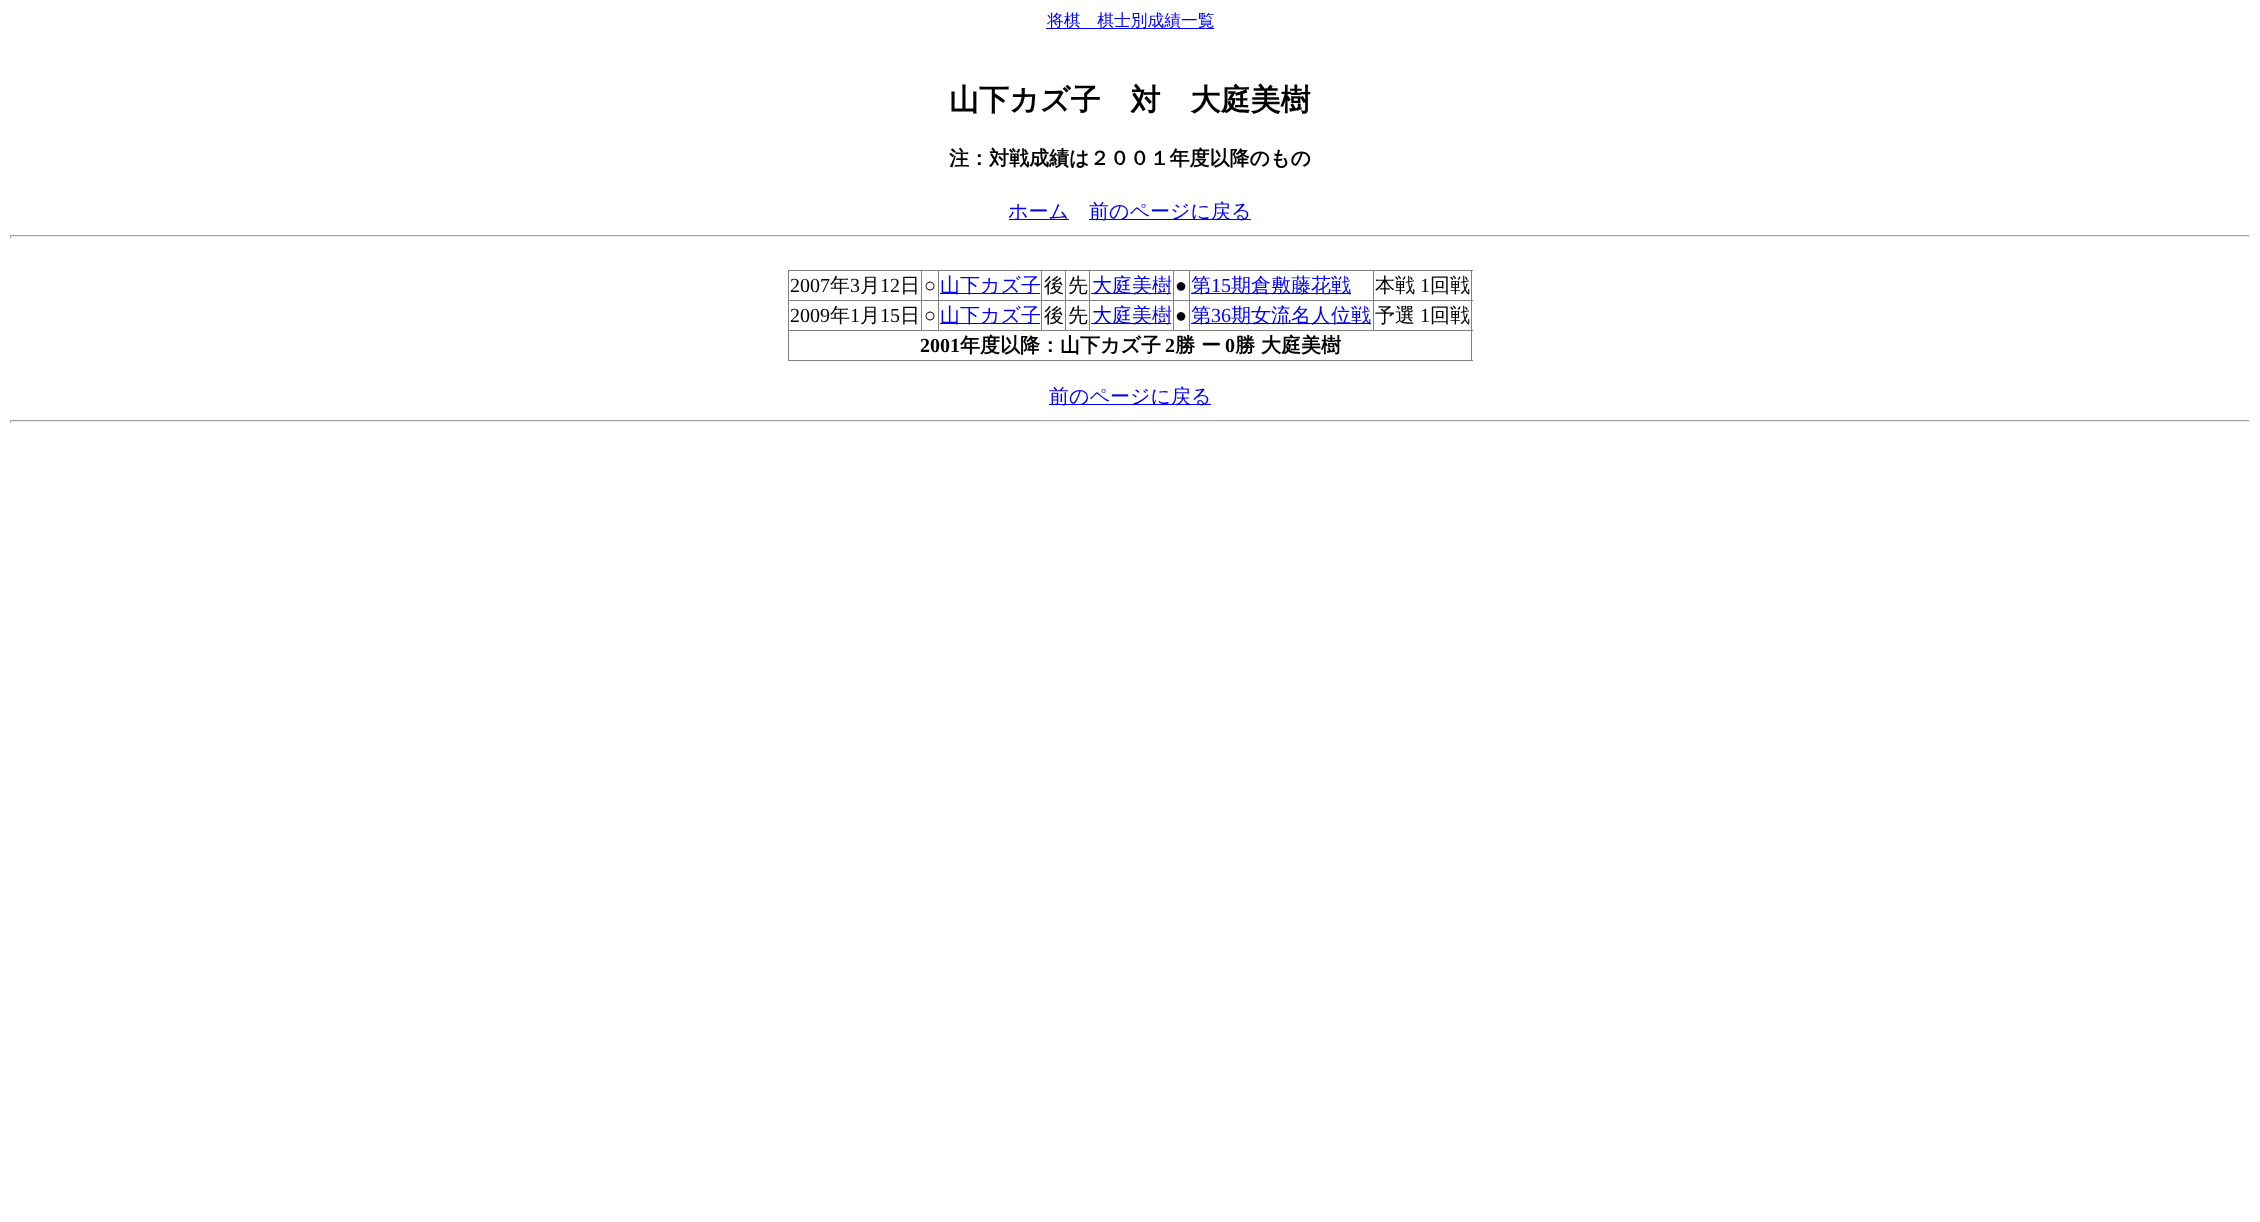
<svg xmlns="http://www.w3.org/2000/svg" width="2260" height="1222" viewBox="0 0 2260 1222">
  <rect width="100%" height="100%" fill="#ffffff"/>
  <rect x="1046" y="28" width="168" height="1" fill="#0000ee"/>
  <text x="1047" y="26" font-family="WenQuanYi Zen Hei" font-size="16.75" font-weight="500" fill="#0000ee">将棋　棋士別成績一覧</text>
  <text x="949" y="110" font-family="WenQuanYi Zen Hei" font-size="30" font-weight="bold" fill="#000000">山下カズ子　対　大庭美樹</text>
  <text x="949" y="165" font-family="WenQuanYi Zen Hei" font-size="20" font-weight="bold" fill="#000000">注：対戦成績は２００１年度以降のもの</text>
  <rect x="1009" y="219" width="60" height="1" fill="#0000ee"/>
  <text x="1008" y="218" font-family="WenQuanYi Zen Hei" font-size="20" font-weight="500" fill="#0000ee">ホーム</text>
  <rect x="1089" y="219" width="162" height="1" fill="#0000ee"/>
  <text x="1089" y="218" font-family="WenQuanYi Zen Hei" font-size="20" font-weight="500" fill="#0000ee">前のページに戻る</text>
  <rect x="10" y="235" width="2240" height="1" fill="#9f9f9f"/>
  <rect x="2249" y="235" width="1" height="3" fill="#eeeeee"/>
  <rect x="10" y="236" width="2240" height="1" fill="#eeeeee"/>
  <rect x="10" y="235" width="1" height="3" fill="#9f9f9f"/>
  <rect x="788" y="270" width="685" height="1" fill="#808080"/>
  <rect x="1471" y="270" width="1" height="91" fill="#808080"/>
  <rect x="788" y="360" width="685" height="1" fill="#808080"/>
  <rect x="788" y="270" width="1" height="91" fill="#808080"/>
  <text x="790" y="292" font-family="Liberation Serif" font-size="20" fill="#000000">2007</text>
  <text x="830" y="292" font-family="WenQuanYi Zen Hei" font-size="20" font-weight="500" fill="#000000">年</text>
  <text x="850" y="292" font-family="Liberation Serif" font-size="20" fill="#000000">3</text>
  <text x="860" y="292" font-family="WenQuanYi Zen Hei" font-size="20" font-weight="500" fill="#000000">月</text>
  <text x="880" y="292" font-family="Liberation Serif" font-size="20" fill="#000000">12</text>
  <text x="900" y="292" font-family="WenQuanYi Zen Hei" font-size="20" font-weight="500" fill="#000000">日</text>
  <rect x="1373" y="300" width="100" height="1" fill="#808080"/>
  <rect x="788" y="330" width="685" height="1" fill="#808080"/>
  <rect x="1373" y="300" width="1" height="31" fill="#808080"/>
  <rect x="1189" y="300" width="185" height="1" fill="#808080"/>
  <rect x="1189" y="300" width="1" height="31" fill="#808080"/>
  <rect x="1173" y="300" width="17" height="1" fill="#808080"/>
  <rect x="1173" y="300" width="1" height="31" fill="#808080"/>
  <rect x="1089" y="300" width="85" height="1" fill="#808080"/>
  <rect x="1089" y="300" width="1" height="31" fill="#808080"/>
  <rect x="1065" y="300" width="25" height="1" fill="#808080"/>
  <rect x="1065" y="300" width="1" height="31" fill="#808080"/>
  <rect x="1041" y="300" width="25" height="1" fill="#808080"/>
  <rect x="1041" y="300" width="1" height="31" fill="#808080"/>
  <rect x="938" y="300" width="105" height="1" fill="#808080"/>
  <rect x="938" y="300" width="1" height="31" fill="#808080"/>
  <rect x="921" y="300" width="18" height="1" fill="#808080"/>
  <rect x="921" y="300" width="1" height="31" fill="#808080"/>
  <rect x="788" y="300" width="135" height="1" fill="#808080"/>
  <rect x="921" y="270" width="1" height="31" fill="#808080"/>
  <text x="924" y="292" font-family="Liberation Serif" font-size="20" fill="#000000">○</text>
  <rect x="938" y="270" width="1" height="31" fill="#808080"/>
  <rect x="940" y="293" width="100" height="1" fill="#0000ee"/>
  <text x="940" y="292" font-family="WenQuanYi Zen Hei" font-size="20" font-weight="500" fill="#0000ee">山下カズ子</text>
  <rect x="1041" y="270" width="1" height="31" fill="#808080"/>
  <text x="1044" y="292" font-family="WenQuanYi Zen Hei" font-size="20" font-weight="500" fill="#000000">後</text>
  <rect x="1065" y="270" width="1" height="31" fill="#808080"/>
  <text x="1068" y="292" font-family="WenQuanYi Zen Hei" font-size="20" font-weight="500" fill="#000000">先</text>
  <rect x="1089" y="270" width="1" height="31" fill="#808080"/>
  <rect x="1091" y="293" width="80" height="1" fill="#0000ee"/>
  <text x="1092" y="292" font-family="WenQuanYi Zen Hei" font-size="20" font-weight="500" fill="#0000ee">大庭美樹</text>
  <rect x="1173" y="270" width="1" height="31" fill="#808080"/>
  <text x="1175" y="292" font-family="Liberation Serif" font-size="20" fill="#000000">●</text>
  <rect x="1189" y="270" width="1" height="31" fill="#808080"/>
  <rect x="1191" y="293" width="160" height="1" fill="#0000ee"/>
  <text x="1191" y="292" font-family="WenQuanYi Zen Hei" font-size="20" font-weight="500" fill="#0000ee">第</text>
  <text x="1211" y="292" font-family="Liberation Serif" font-size="20" fill="#0000ee">15</text>
  <text x="1231" y="292" font-family="WenQuanYi Zen Hei" font-size="20" font-weight="500" fill="#0000ee">期倉敷藤花戦</text>
  <rect x="1373" y="270" width="1" height="31" fill="#808080"/>
  <text x="1375" y="292" font-family="WenQuanYi Zen Hei" font-size="20" font-weight="500" fill="#000000">本戦</text>
  <text x="1420" y="292" font-family="Liberation Serif" font-size="20" fill="#000000">1</text>
  <text x="1430" y="292" font-family="WenQuanYi Zen Hei" font-size="20" font-weight="500" fill="#000000">回戦</text>
  <text x="790" y="322" font-family="Liberation Serif" font-size="20" fill="#000000">2009</text>
  <text x="830" y="322" font-family="WenQuanYi Zen Hei" font-size="20" font-weight="500" fill="#000000">年</text>
  <text x="850" y="322" font-family="Liberation Serif" font-size="20" fill="#000000">1</text>
  <text x="860" y="322" font-family="WenQuanYi Zen Hei" font-size="20" font-weight="500" fill="#000000">月</text>
  <text x="880" y="322" font-family="Liberation Serif" font-size="20" fill="#000000">15</text>
  <text x="900" y="322" font-family="WenQuanYi Zen Hei" font-size="20" font-weight="500" fill="#000000">日</text>
  <text x="924" y="322" font-family="Liberation Serif" font-size="20" fill="#000000">○</text>
  <rect x="940" y="323" width="100" height="1" fill="#0000ee"/>
  <text x="940" y="322" font-family="WenQuanYi Zen Hei" font-size="20" font-weight="500" fill="#0000ee">山下カズ子</text>
  <text x="1044" y="322" font-family="WenQuanYi Zen Hei" font-size="20" font-weight="500" fill="#000000">後</text>
  <text x="1068" y="322" font-family="WenQuanYi Zen Hei" font-size="20" font-weight="500" fill="#000000">先</text>
  <rect x="1091" y="323" width="80" height="1" fill="#0000ee"/>
  <text x="1092" y="322" font-family="WenQuanYi Zen Hei" font-size="20" font-weight="500" fill="#0000ee">大庭美樹</text>
  <text x="1175" y="322" font-family="Liberation Serif" font-size="20" fill="#000000">●</text>
  <rect x="1191" y="323" width="180" height="1" fill="#0000ee"/>
  <text x="1191" y="322" font-family="WenQuanYi Zen Hei" font-size="20" font-weight="500" fill="#0000ee">第</text>
  <text x="1211" y="322" font-family="Liberation Serif" font-size="20" fill="#0000ee">36</text>
  <text x="1231" y="322" font-family="WenQuanYi Zen Hei" font-size="20" font-weight="500" fill="#0000ee">期女流名人位戦</text>
  <text x="1375" y="322" font-family="WenQuanYi Zen Hei" font-size="20" font-weight="500" fill="#000000">予選</text>
  <text x="1420" y="322" font-family="Liberation Serif" font-size="20" fill="#000000">1</text>
  <text x="1430" y="322" font-family="WenQuanYi Zen Hei" font-size="20" font-weight="500" fill="#000000">回戦</text>
  <text x="920" y="352" font-family="Liberation Serif" font-size="20" font-weight="bold" fill="#000000">2001</text>
  <text x="960" y="352" font-family="WenQuanYi Zen Hei" font-size="20" font-weight="bold" fill="#000000">年度以降：山下カズ子</text>
  <text x="1165" y="352" font-family="Liberation Serif" font-size="20" font-weight="bold" fill="#000000">2</text>
  <text x="1175" y="352" font-family="WenQuanYi Zen Hei" font-size="20" font-weight="bold" fill="#000000">勝 ー</text>
  <text x="1225" y="352" font-family="Liberation Serif" font-size="20" font-weight="bold" fill="#000000">0</text>
  <text x="1235" y="352" font-family="WenQuanYi Zen Hei" font-size="20" font-weight="bold" fill="#000000">勝 大庭美樹</text>
  <rect x="1049" y="404" width="162" height="1" fill="#0000ee"/>
  <text x="1049" y="403" font-family="WenQuanYi Zen Hei" font-size="20" font-weight="500" fill="#0000ee">前のページに戻る</text>
  <rect x="10" y="420" width="2240" height="1" fill="#9f9f9f"/>
  <rect x="2249" y="420" width="1" height="3" fill="#eeeeee"/>
  <rect x="10" y="421" width="2240" height="1" fill="#eeeeee"/>
  <rect x="10" y="420" width="1" height="3" fill="#9f9f9f"/>
</svg>
